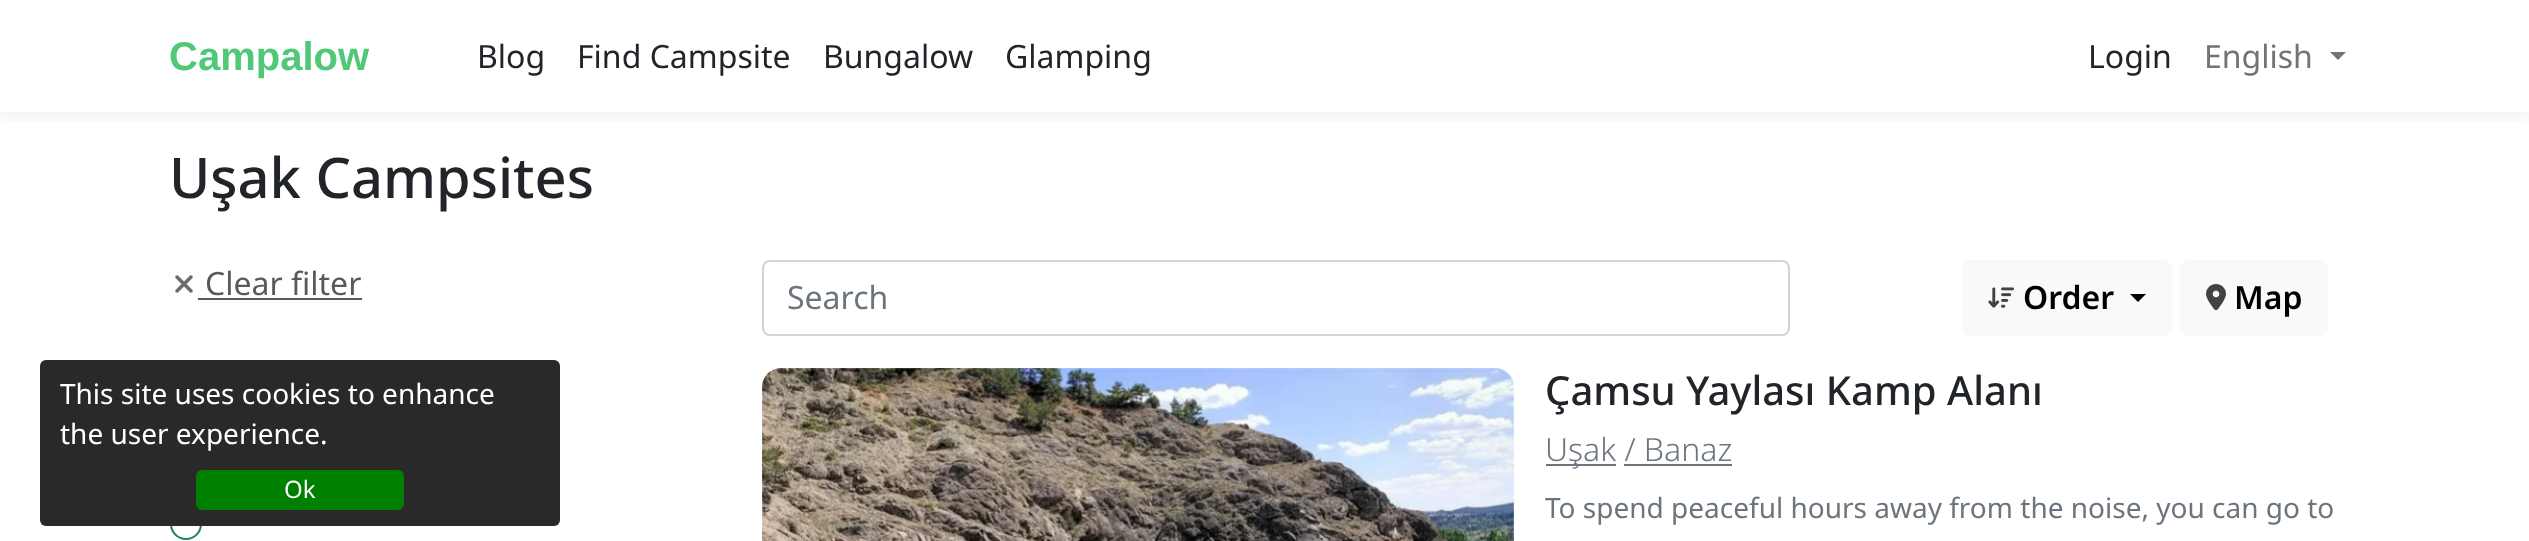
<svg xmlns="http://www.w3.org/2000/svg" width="2529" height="541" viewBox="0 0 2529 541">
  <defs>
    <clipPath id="clip1"><rect x="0" y="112" width="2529" height="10"/></clipPath>
    <filter id="blur1" x="-50%" y="-200%" width="200%" height="500%"><feGaussianBlur stdDeviation="12"/></filter>
  </defs>
  <rect width="100%" height="100%" fill="#ffffff"/>
  <g clip-path="url(#clip1)">
    <rect x="0" y="2" width="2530" height="112" fill="#000000" fill-opacity="0.08" filter="url(#blur1)"/>
  </g>
  <text x="169" y="70" font-family="Liberation Sans" font-size="40" font-weight="bold" fill="#50c878">Campalow</text>
  <text x="477" y="68" font-family="Noto Sans" font-size="32" fill="#212529">Blog</text>
  <text x="577" y="68" font-family="Noto Sans" font-size="32" fill="#212529">Find Campsite</text>
  <text x="823" y="68" font-family="Noto Sans" font-size="32" fill="#212529">Bungalow</text>
  <text x="1005" y="68" font-family="Noto Sans" font-size="32" fill="#212529">Glamping</text>
  <text x="2088" y="68" font-family="Noto Sans" font-size="32" fill="#212529">Login</text>
  <text x="2204" y="68" font-family="Noto Sans" font-size="32" fill="#737373">English</text>
  <path d="M2330 52H2346L2338 60Z" fill="#737373"/>
  <text x="169" y="198" font-family="Noto Sans" font-size="56" font-weight="500" fill="#212529">Uşak Campsites</text>
  <image x="175" y="275" width="18" height="18" href="img1.png"/>
  <text x="205" y="295" font-family="Noto Sans" font-size="32" fill="#585959">Clear filter</text>
  <rect x="198" y="298" width="164" height="2" fill="#585959"/>
  <circle cx="186" cy="524" r="15" fill="none" stroke="#198754" stroke-width="2"/>
  <rect x="763" y="261" width="1026" height="74" rx="7" fill="none" stroke="#ced4da" stroke-width="2"/>
  <text x="787" y="309" font-family="Noto Sans" font-size="32" fill="#6c757d">Search</text>
  <rect x="1962" y="260" width="210" height="76" rx="8" fill="#f8f9fa"/>
  <image x="1988" y="287" width="26" height="21" href="img2.png"/>
  <text x="2023" y="309" font-family="Noto Sans" font-size="32" font-weight="600" fill="#000000">Order</text>
  <path d="M2130 294H2146L2138 302Z" fill="#000000"/>
  <rect x="2180" y="260" width="148" height="76" rx="8" fill="#f8f9fa"/>
  <image x="2206" y="284" width="20" height="26" href="img3.png"/>
  <text x="2234" y="309" font-family="Noto Sans" font-size="32" font-weight="600" fill="#000000">Map</text>
  <image x="762" y="368" width="752" height="173" href="img4.png"/>
  <text x="1545" y="405" font-family="Noto Sans" font-size="40" font-weight="500" fill="#212529">Çamsu Yaylası Kamp Alanı</text>
  <rect x="1546" y="464" width="70" height="2" fill="#6c757d"/>
  <text x="1545" y="461" font-family="Noto Sans" font-size="32" font-weight="300" fill="#6c757d">Uşak / Banaz</text>
  <rect x="1624" y="464" width="108" height="2" fill="#6c757d"/>
  <text x="1545" y="518" font-family="Noto Sans" font-size="28" fill="#6c757d">To spend peaceful hours away from the noise, you can go to</text>
  <rect x="40" y="360" width="520" height="166" rx="6" fill="#292929"/>
  <text x="60" y="404" font-family="Noto Sans" font-size="28" fill="#ffffff">This site uses cookies to enhance</text>
  <text x="60" y="444" font-family="Noto Sans" font-size="28" fill="#ffffff">the user experience.</text>
  <rect x="197" y="471" width="206" height="38" rx="5" fill="#008000" stroke="#008000" stroke-width="2"/>
  <text x="284" y="498" font-family="Noto Sans" font-size="24" fill="#ffffff">Ok</text>
</svg>
